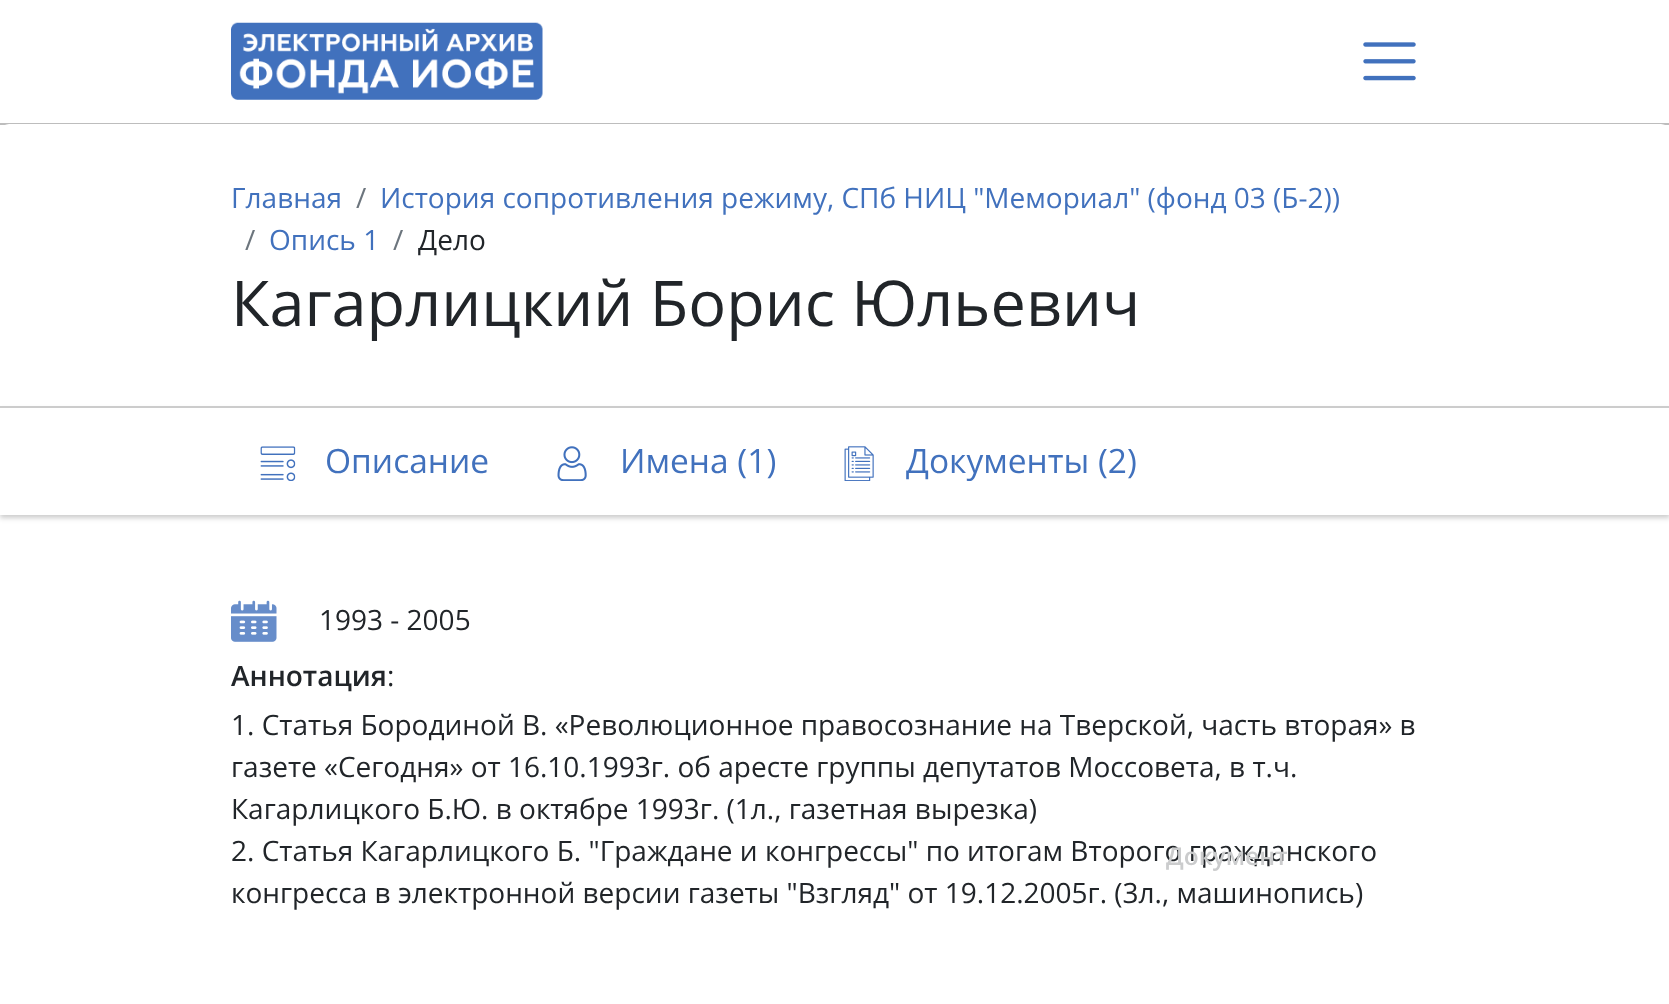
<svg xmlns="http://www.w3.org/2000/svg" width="1669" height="1004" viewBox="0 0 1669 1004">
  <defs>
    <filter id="blur1" x="-50%" y="-200%" width="200%" height="500%"><feGaussianBlur stdDeviation="2.5"/></filter>
  </defs>
  <rect width="100%" height="100%" fill="#ffffff"/>
  <rect x="0" y="123" width="1669" height="2" fill="#bdbdbd"/>
  <image x="231" y="22" width="312" height="78" href="img1.png"/>
  <image x="1363" y="42" width="53" height="39" href="img2.png"/>
  <rect x="0" y="124" width="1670" height="282" rx="9" fill="#ffffff"/>
  <text x="231" y="208" font-family="Open Sans" font-size="28" fill="#4171bd">Главная</text>
  <text x="356" y="208" font-family="Open Sans" font-size="28" fill="#6c757d">/</text>
  <text x="380" y="208" font-family="Open Sans" font-size="28" fill="#4171bd">История сопротивления режиму, СПб НИЦ "Мемориал" (фонд 03 (Б-2))</text>
  <text x="245" y="250" font-family="Open Sans" font-size="28" fill="#6c757d">/</text>
  <text x="269" y="250" font-family="Open Sans" font-size="28" fill="#4171bd">Опись 1</text>
  <text x="393" y="250" font-family="Open Sans" font-size="28" fill="#6c757d">/</text>
  <text x="418" y="250" font-family="Open Sans" font-size="28" fill="#212529">Дело</text>
  <text x="231" y="326" font-family="Open Sans" font-size="63" fill="#212529">Кагарлицкий Борис Юльевич</text>
  <rect x="0" y="410" width="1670" height="108" fill="#cccccc" filter="url(#blur1)"/>
  <rect x="0" y="408" width="1669" height="107" fill="#ffffff"/>
  <rect x="0" y="406" width="1669" height="2" fill="#cccccc"/>
  <image x="260" y="446" width="36" height="35" href="img3.png"/>
  <text x="325" y="473" font-family="Open Sans" font-size="33.5" fill="#4171bd">Описание</text>
  <image x="557" y="446" width="30" height="35" href="img4.png"/>
  <text x="620" y="473" font-family="Open Sans" font-size="33.5" fill="#4171bd">Имена (1)</text>
  <image x="844" y="446" width="30" height="35" href="img5.png"/>
  <text x="906" y="473" font-family="Open Sans" font-size="33.5" fill="#4171bd">Документы (2)</text>
  <image x="231" y="600" width="46" height="42" href="img6.png"/>
  <text x="319" y="630" font-family="Open Sans" font-size="28" fill="#212529">1993 - 2005</text>
  <text x="231" y="686" font-family="Open Sans" font-size="28" font-weight="600" fill="#212529">Аннотация</text>
  <text x="387" y="686" font-family="Open Sans" font-size="28" fill="#212529">:</text>
  <text x="231" y="735" font-family="Open Sans" font-size="28" fill="#212529">1. Статья Бородиной В. «Революционное правосознание на Тверской, часть вторая» в</text>
  <text x="231" y="777" font-family="Open Sans" font-size="28" fill="#212529">газете «Сегодня» от 16.10.1993г. об аресте группы депутатов Моссовета, в т.ч.</text>
  <text x="231" y="819" font-family="Open Sans" font-size="28" fill="#212529">Кагарлицкого Б.Ю. в октябре 1993г. (1л., газетная вырезка)</text>
  <text x="231" y="861" font-family="Open Sans" font-size="28" fill="#212529">2. Статья Кагарлицкого Б. "Граждане и конгрессы" по итогам Второго гражданского</text>
  <text x="231" y="903" font-family="Open Sans" font-size="28" fill="#212529">конгресса в электронной версии газеты "Взгляд" от 19.12.2005г. (3л., машинопись)</text>
  <text x="1166" y="865" font-family="Open Sans" font-size="24.5" font-weight="600" fill="#cbcccd">Документ</text>
</svg>
